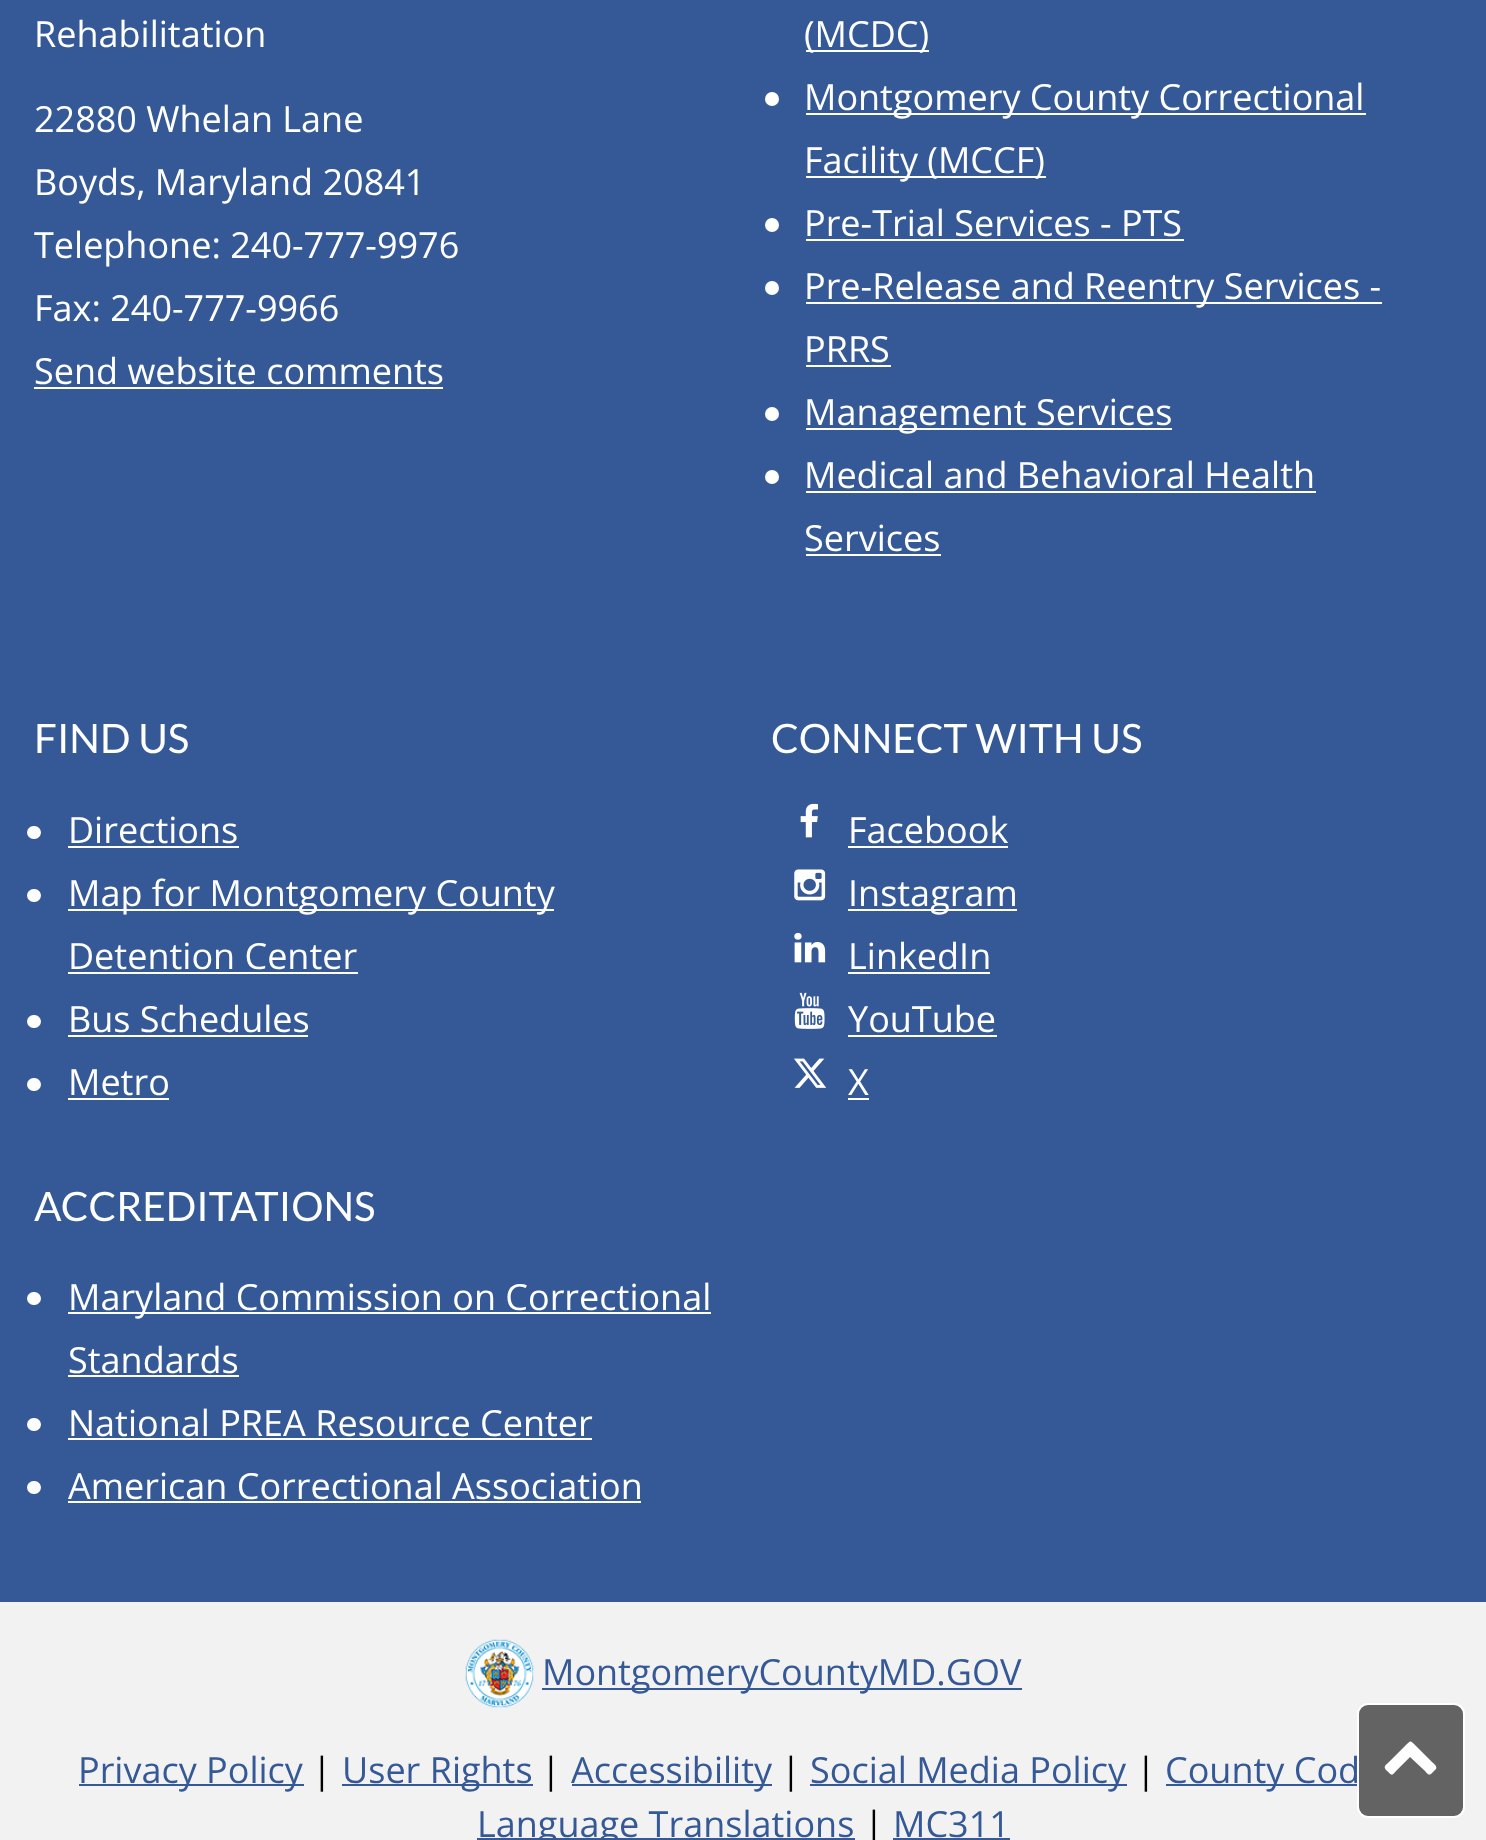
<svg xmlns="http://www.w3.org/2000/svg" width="1486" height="1840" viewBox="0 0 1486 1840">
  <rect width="100%" height="100%" fill="#355997"/>
  <text x="34" y="47" font-family="Open Sans" font-size="36" fill="#ffffff">Rehabilitation</text>
  <text x="34" y="132" font-family="Open Sans" font-size="36" fill="#ffffff">22880 Whelan Lane</text>
  <text x="34" y="195" font-family="Open Sans" font-size="36" fill="#ffffff">Boyds, Maryland 20841</text>
  <text x="34" y="258" font-family="Open Sans" font-size="36" fill="#ffffff">Telephone: 240-777-9976</text>
  <text x="34" y="321" font-family="Open Sans" font-size="36" fill="#ffffff">Fax: 240-777-9966</text>
  <text x="34" y="384" font-family="Open Sans" font-size="36" fill="#ffffff">Send website comments</text>
  <rect x="34" y="387" width="409" height="2" fill="#ffffff"/>
  <rect x="806" y="50" width="123" height="2" fill="#ffffff"/>
  <text x="804" y="47" font-family="Open Sans" font-size="36" fill="#ffffff">(MCDC)</text>
  <circle cx="772" cy="99" r="7" fill="#ffffff"/>
  <rect x="806" y="113" width="560" height="2" fill="#ffffff"/>
  <text x="804" y="110" font-family="Open Sans" font-size="36" fill="#ffffff">Montgomery County Correctional</text>
  <rect x="806" y="176" width="240" height="2" fill="#ffffff"/>
  <text x="804" y="173" font-family="Open Sans" font-size="36" fill="#ffffff">Facility (MCCF)</text>
  <circle cx="772" cy="225" r="7" fill="#ffffff"/>
  <text x="804" y="236" font-family="Open Sans" font-size="36" fill="#ffffff">Pre-Trial Services - PTS</text>
  <rect x="806" y="239" width="378" height="2" fill="#ffffff"/>
  <circle cx="772" cy="288" r="7" fill="#ffffff"/>
  <rect x="806" y="302" width="576" height="2" fill="#ffffff"/>
  <text x="804" y="299" font-family="Open Sans" font-size="36" fill="#ffffff">Pre-Release and Reentry Services -</text>
  <text x="804" y="362" font-family="Open Sans" font-size="36" fill="#ffffff">PRRS</text>
  <rect x="806" y="365" width="85" height="2" fill="#ffffff"/>
  <circle cx="772" cy="414" r="7" fill="#ffffff"/>
  <rect x="806" y="428" width="366" height="2" fill="#ffffff"/>
  <text x="804" y="425" font-family="Open Sans" font-size="36" fill="#ffffff">Management Services</text>
  <circle cx="772" cy="477" r="7" fill="#ffffff"/>
  <text x="804" y="488" font-family="Open Sans" font-size="36" fill="#ffffff">Medical and Behavioral Health</text>
  <rect x="806" y="491" width="510" height="2" fill="#ffffff"/>
  <text x="804" y="551" font-family="Open Sans" font-size="36" fill="#ffffff">Services</text>
  <rect x="806" y="554" width="135" height="2" fill="#ffffff"/>
  <text x="34" y="753" font-family="Lato" font-size="40.5" fill="#ffffff">FIND US</text>
  <rect x="27" y="826" width="14" height="13" rx="6.5" fill="#ffffff"/>
  <text x="68" y="843" font-family="Open Sans" font-size="36" fill="#ffffff">Directions</text>
  <rect x="68" y="846" width="171" height="2" fill="#ffffff"/>
  <rect x="27" y="889" width="14" height="13" rx="6.5" fill="#ffffff"/>
  <rect x="68" y="909" width="486" height="2" fill="#ffffff"/>
  <text x="68" y="906" font-family="Open Sans" font-size="36" fill="#ffffff">Map for Montgomery County</text>
  <text x="68" y="969" font-family="Open Sans" font-size="36" fill="#ffffff">Detention Center</text>
  <rect x="68" y="972" width="290" height="2" fill="#ffffff"/>
  <rect x="27" y="1015" width="14" height="13" rx="6.5" fill="#ffffff"/>
  <text x="68" y="1032" font-family="Open Sans" font-size="36" fill="#ffffff">Bus Schedules</text>
  <rect x="68" y="1035" width="240" height="2" fill="#ffffff"/>
  <rect x="27" y="1078" width="14" height="13" rx="6.5" fill="#ffffff"/>
  <text x="68" y="1095" font-family="Open Sans" font-size="36" fill="#ffffff">Metro</text>
  <rect x="68" y="1098" width="101" height="2" fill="#ffffff"/>
  <text x="34" y="1221" font-family="Lato" font-size="40.5" fill="#ffffff">ACCREDITATIONS</text>
  <rect x="27" y="1292" width="14" height="13" rx="6.5" fill="#ffffff"/>
  <rect x="68" y="1312" width="643" height="2" fill="#ffffff"/>
  <text x="68" y="1310" font-family="Open Sans" font-size="36" fill="#ffffff">Maryland Commission on Correctional</text>
  <text x="68" y="1373" font-family="Open Sans" font-size="36" fill="#ffffff">Standards</text>
  <rect x="68" y="1375" width="171" height="2" fill="#ffffff"/>
  <rect x="27" y="1418" width="14" height="13" rx="6.5" fill="#ffffff"/>
  <text x="68" y="1436" font-family="Open Sans" font-size="36" fill="#ffffff">National PREA Resource Center</text>
  <rect x="68" y="1438" width="524" height="2" fill="#ffffff"/>
  <rect x="27" y="1481" width="14" height="13" rx="6.5" fill="#ffffff"/>
  <text x="68" y="1499" font-family="Open Sans" font-size="36" fill="#ffffff">American Correctional Association</text>
  <rect x="68" y="1501" width="573" height="2" fill="#ffffff"/>
  <text x="771" y="753" font-family="Lato" font-size="40.5" fill="#ffffff">CONNECT WITH US</text>
  <image x="800" y="803" width="18" height="35" href="img1.png"/>
  <text x="848" y="843" font-family="Open Sans" font-size="36" fill="#ffffff">Facebook</text>
  <rect x="848" y="846" width="160" height="2" fill="#ffffff"/>
  <image x="794" y="869" width="32" height="32" href="img2.png"/>
  <rect x="848" y="909" width="169" height="2" fill="#ffffff"/>
  <text x="848" y="906" font-family="Open Sans" font-size="36" fill="#ffffff">Instagram</text>
  <image x="794" y="932" width="32" height="31" href="img3.png"/>
  <text x="848" y="969" font-family="Open Sans" font-size="36" fill="#ffffff">LinkedIn</text>
  <rect x="848" y="972" width="142" height="2" fill="#ffffff"/>
  <image x="794" y="992" width="31" height="37" href="img4.png"/>
  <text x="848" y="1032" font-family="Open Sans" font-size="36" fill="#ffffff">YouTube</text>
  <rect x="848" y="1035" width="149" height="2" fill="#ffffff"/>
  <image x="794" y="1058" width="33" height="30" href="img5.png"/>
  <text x="848" y="1095" font-family="Open Sans" font-size="36" fill="#ffffff">X</text>
  <rect x="848" y="1098" width="21" height="2" fill="#ffffff"/>
  <rect x="0" y="1602" width="1486" height="238" fill="#f2f2f2"/>
  <image x="465" y="1639" width="69" height="69" href="img6.png"/>
  <rect x="542" y="1688" width="480" height="2" fill="#355997"/>
  <text x="542" y="1685" font-family="Open Sans" font-size="36" fill="#355997">MontgomeryCountyMD.GOV</text>
  <rect x="79" y="1784" width="225" height="2" fill="#355997"/>
  <text x="78" y="1783" font-family="Open Sans" font-size="36" fill="#355997">Privacy Policy</text>
  <text x="312" y="1783" font-family="Open Sans" font-size="36" fill="#000000">|</text>
  <rect x="342" y="1784" width="191" height="2" fill="#355997"/>
  <text x="342" y="1783" font-family="Open Sans" font-size="36" fill="#355997">User Rights</text>
  <text x="541" y="1783" font-family="Open Sans" font-size="36" fill="#000000">|</text>
  <rect x="572" y="1784" width="200" height="2" fill="#355997"/>
  <text x="571" y="1783" font-family="Open Sans" font-size="36" fill="#355997">Accessibility</text>
  <text x="781" y="1783" font-family="Open Sans" font-size="36" fill="#000000">|</text>
  <rect x="810" y="1784" width="317" height="2" fill="#355997"/>
  <text x="810" y="1783" font-family="Open Sans" font-size="36" fill="#355997">Social Media Policy</text>
  <text x="1136" y="1783" font-family="Open Sans" font-size="36" fill="#000000">|</text>
  <rect x="1166" y="1784" width="191" height="2" fill="#355997"/>
  <text x="1165" y="1783" font-family="Open Sans" font-size="36" fill="#355997">County Cod</text>
  <rect x="477" y="1838" width="378" height="2" fill="#355997"/>
  <text x="477" y="1837" font-family="Open Sans" font-size="36" fill="#355997">Language Translations</text>
  <text x="864" y="1837" font-family="Open Sans" font-size="36" fill="#000000">|</text>
  <text x="893" y="1837" font-family="Open Sans" font-size="36" fill="#355997">MC311</text>
  <rect x="893" y="1838" width="117" height="2" fill="#355997"/>
  <rect x="1358" y="1704" width="106" height="113" rx="10" fill="#636363" stroke="#ffffff" stroke-width="2"/>
  <path d="M1436 1769C1430 1775 1430 1777 1425 1771L1410 1757L1396 1771C1391 1777 1392 1775 1386 1770C1383 1766 1386 1765 1389 1762L1405 1746C1411 1740 1410 1740 1416 1746L1432 1762C1432 1762 1438 1766 1436 1769Z" fill="#ffffff"/>
</svg>
